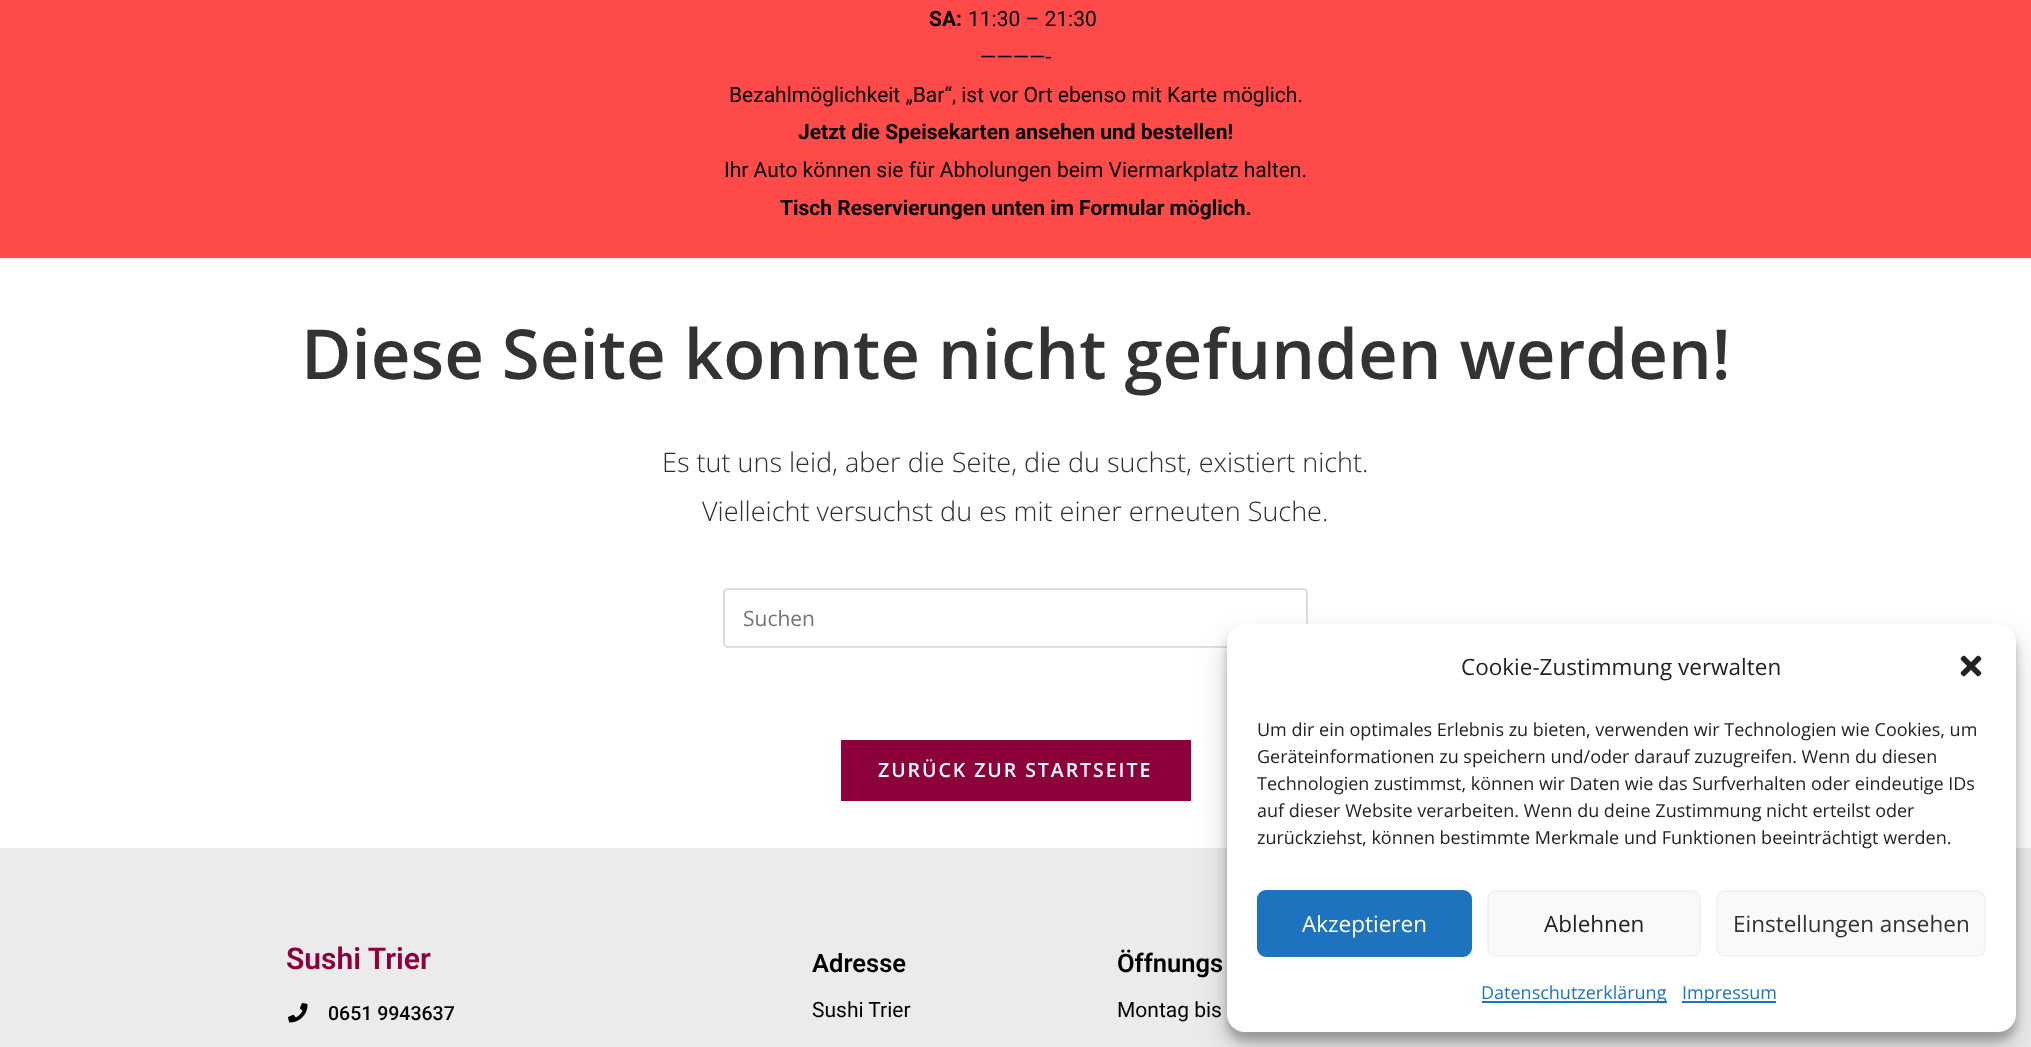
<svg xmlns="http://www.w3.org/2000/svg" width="2031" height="1047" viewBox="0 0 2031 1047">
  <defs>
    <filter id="blur1" x="-50%" y="-200%" width="200%" height="500%"><feGaussianBlur stdDeviation="4.5"/></filter>
    <filter id="blur2" x="-50%" y="-200%" width="200%" height="500%"><feGaussianBlur stdDeviation="15"/></filter>
  </defs>
  <rect width="100%" height="100%" fill="#ffffff"/>
  <rect x="0" y="258" width="2031" height="2" fill="#f1f1f1"/>
  <rect x="0" y="0" width="2031" height="258" fill="#ff4a4a"/>
  <text x="929" y="26" font-family="Roboto" font-size="21" font-weight="bold" fill="#000000">SA:</text>
  <text x="968" y="26" font-family="Roboto" font-size="21" fill="#000000">11:30 – 21:30</text>
  <text x="980" y="64" font-family="Roboto" font-size="21" fill="#000000">————-</text>
  <text x="729" y="102" font-family="Roboto" font-size="21" fill="#000000">Bezahlmöglichkeit „Bar“, ist vor Ort ebenso mit Karte möglich.</text>
  <text x="798" y="139" font-family="Roboto" font-size="21" font-weight="bold" fill="#000000">Jetzt die Speisekarten ansehen und bestellen!</text>
  <text x="724" y="177" font-family="Roboto" font-size="21" fill="#000000">Ihr Auto können sie für Abholungen beim Viermarkplatz halten.</text>
  <text x="780" y="215" font-family="Roboto" font-size="21" font-weight="bold" fill="#000000">Tisch Reservierungen unten im Formular möglich.</text>
  <text x="301" y="379" font-family="Open Sans" font-size="69" font-weight="600" fill="#333333">Diese Seite konnte nicht gefunden werden!</text>
  <text x="662" y="472" font-family="Open Sans" font-size="27" font-weight="300" fill="#2d2d2d">Es tut uns leid, aber die Seite, die du suchst, existiert nicht.</text>
  <text x="702" y="521" font-family="Open Sans" font-size="27" font-weight="300" fill="#2d2d2d">Vielleicht versuchst du es mit einer erneuten Suche.</text>
  <rect x="724" y="589" width="583" height="58" rx="4" fill="none" stroke="#dddddd" stroke-width="2"/>
  <text x="743" y="626" font-family="Open Sans" font-size="21" fill="#757575">Suchen</text>
  <rect x="841" y="740" width="350" height="61" fill="#8c003b"/>
  <text x="878" y="777" font-family="Open Sans" font-size="19.5" font-weight="600" letter-spacing="1.95" fill="#ffffff">ZURÜCK ZUR STARTSEITE</text>
  <rect x="0" y="848" width="2031" height="199" fill="#ebebeb"/>
  <text x="286" y="969" font-family="Roboto" font-size="30" font-weight="600" fill="#8c003b">Sushi Trier</text>
  <image x="288" y="1003" width="20" height="20" href="img1.png"/>
  <text x="328" y="1020" font-family="Roboto" font-size="19.5" font-weight="500" fill="#000000">0651 9943637</text>
  <text x="812" y="972" font-family="Roboto" font-size="25.5" font-weight="600" fill="#000000">Adresse</text>
  <text x="812" y="1017" font-family="Roboto" font-size="21" fill="#000000">Sushi Trier</text>
  <text x="1117" y="972" font-family="Roboto" font-size="25.5" font-weight="600" fill="#000000">Öffnungs</text>
  <text x="1117" y="1017" font-family="Roboto" font-size="21" fill="#000000">Montag bis</text>
  <rect x="1227" y="633" width="789" height="408" rx="18" fill="#000000" fill-opacity="0.23" filter="url(#blur1)"/>
  <rect x="1227" y="639" width="789" height="408" rx="18" fill="#000000" fill-opacity="0.19" filter="url(#blur2)"/>
  <rect x="1227" y="624" width="789" height="408" rx="18" fill="#ffffff"/>
  <text x="1461" y="675" font-family="Open Sans" font-size="22.5" fill="#222222">Cookie-Zustimmung verwalten</text>
  <image x="1960" y="655" width="22" height="22" href="img2.png"/>
  <text x="1257" y="736" font-family="Open Sans" font-size="18" fill="#222222">Um dir ein optimales Erlebnis zu bieten, verwenden wir Technologien wie Cookies, um</text>
  <text x="1257" y="763" font-family="Open Sans" font-size="18" fill="#222222">Geräteinformationen zu speichern und/oder darauf zuzugreifen. Wenn du diesen</text>
  <text x="1257" y="790" font-family="Open Sans" font-size="18" fill="#222222">Technologien zustimmst, können wir Daten wie das Surfverhalten oder eindeutige IDs</text>
  <text x="1257" y="817" font-family="Open Sans" font-size="18" fill="#222222">auf dieser Website verarbeiten. Wenn du deine Zustimmung nicht erteilst oder</text>
  <text x="1257" y="844" font-family="Open Sans" font-size="18" fill="#222222">zurückziehst, können bestimmte Merkmale und Funktionen beeinträchtigt werden.</text>
  <rect x="1258" y="891" width="213" height="65" rx="8" fill="#1e73be" stroke="#1e73be" stroke-width="2"/>
  <text x="1302" y="932" font-family="Open Sans" font-size="22.5" fill="#ffffff">Akzeptieren</text>
  <rect x="1488" y="891" width="212" height="65" rx="8" fill="#f9f9f9" stroke="#f2f2f2" stroke-width="2"/>
  <text x="1544" y="932" font-family="Open Sans" font-size="22.5" fill="#222222">Ablehnen</text>
  <rect x="1717" y="891" width="268" height="65" rx="8" fill="#f9f9f9" stroke="#f2f2f2" stroke-width="2"/>
  <text x="1733" y="932" font-family="Open Sans" font-size="22.5" fill="#333333">Einstellungen ansehen</text>
  <rect x="1482" y="1001" width="185" height="2" fill="#1e73be"/>
  <text x="1481" y="999" font-family="Open Sans" font-size="18" fill="#1e73be">Datenschutzerklärung</text>
  <rect x="1682" y="1001" width="94" height="2" fill="#1e73be"/>
  <text x="1682" y="999" font-family="Open Sans" font-size="18" fill="#1e73be">Impressum</text>
</svg>
